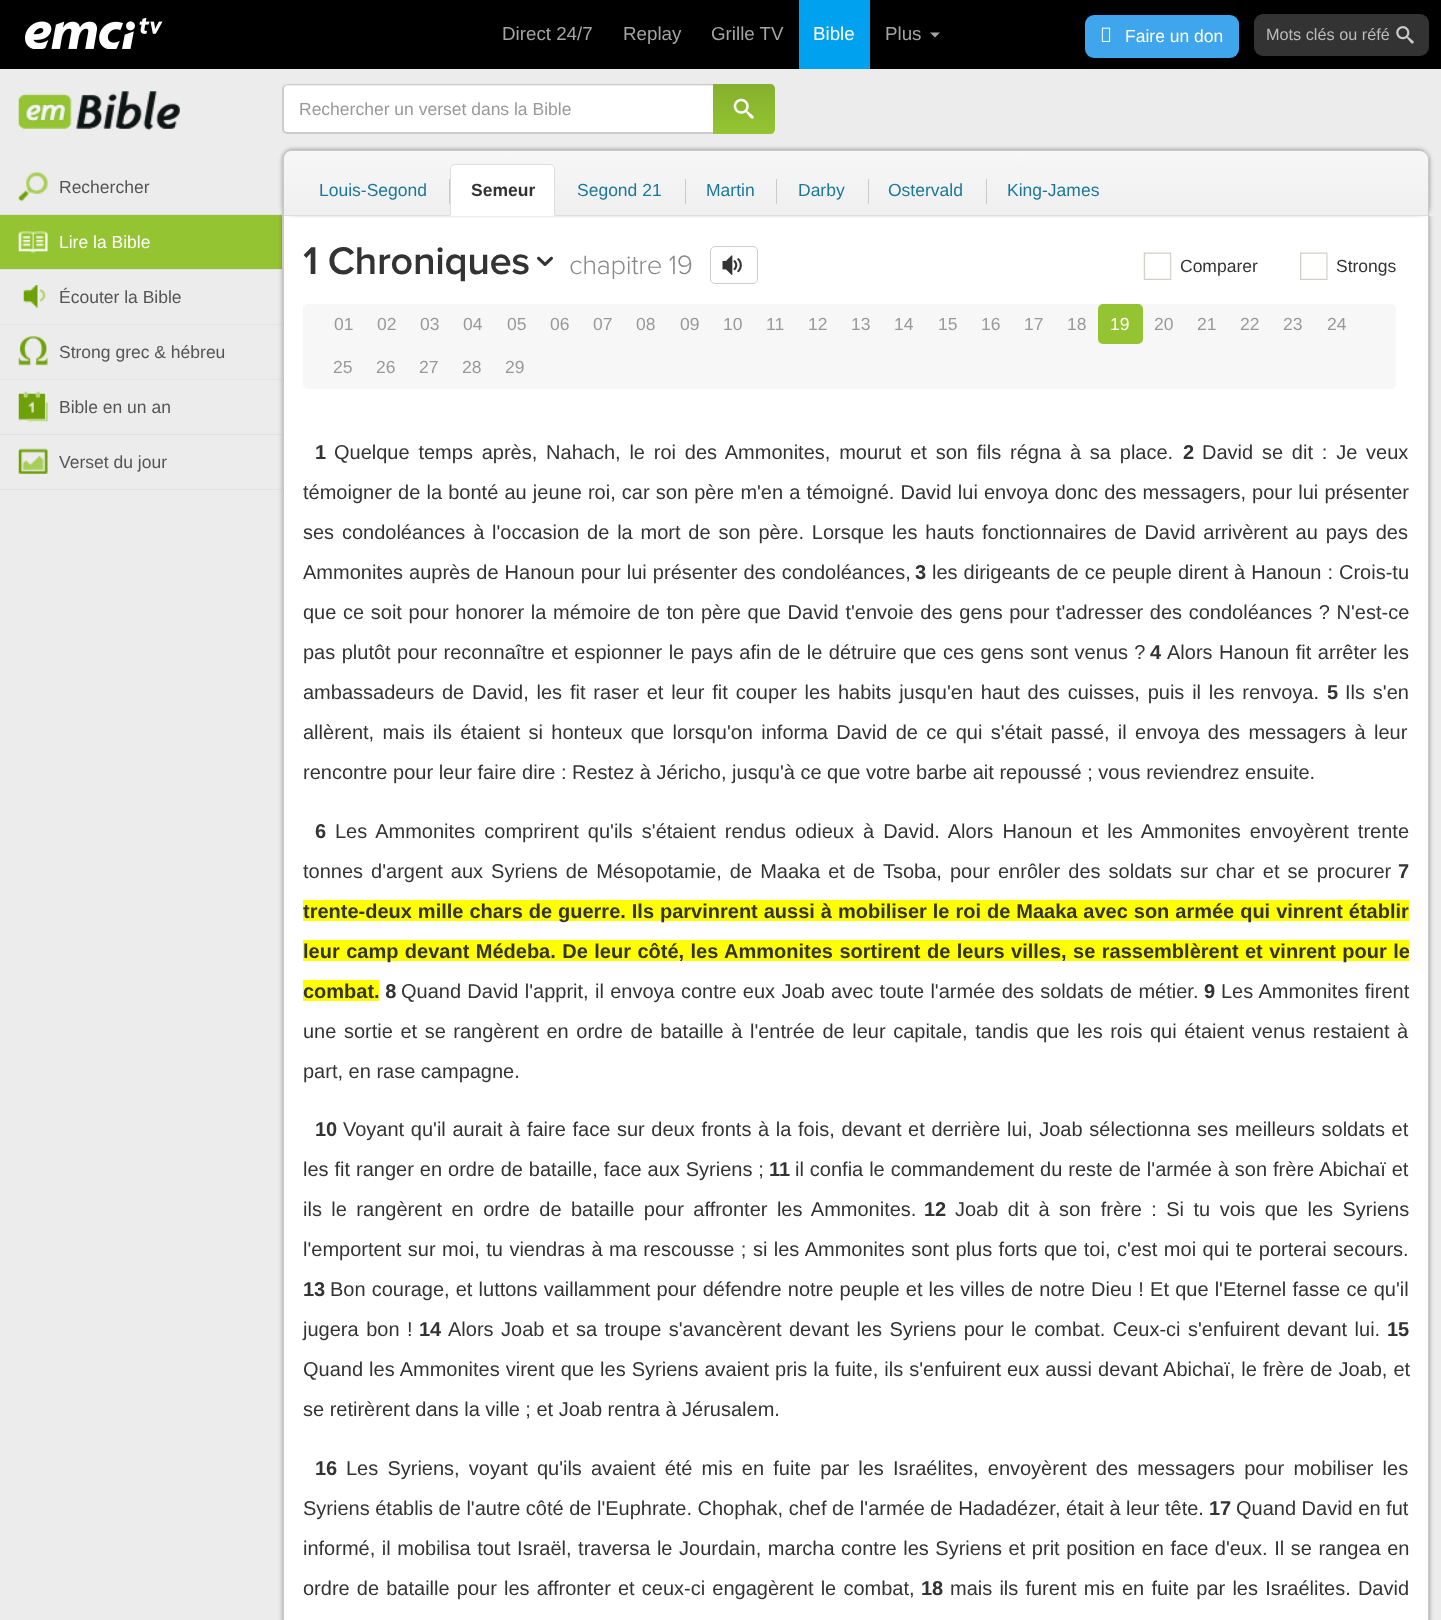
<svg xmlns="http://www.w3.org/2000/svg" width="1441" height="1620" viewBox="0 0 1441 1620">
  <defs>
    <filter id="blur1" x="-50%" y="-200%" width="200%" height="500%"><feGaussianBlur stdDeviation="2.5"/></filter>
    <linearGradient id="g1" gradientUnits="userSpaceOnUse" x1="744" y1="84" x2="744" y2="134"><stop offset="0" stop-color="#85b02d"/><stop offset="1" stop-color="#94c432"/></linearGradient>
    <clipPath id="clip1"><path d="M292 150H1420C1425 150 1429 154 1429 159V216H283V159C283 154 287 150 292 150Z"/></clipPath>
    <linearGradient id="g2" gradientUnits="userSpaceOnUse" x1="856" y1="151" x2="856" y2="216"><stop offset="0" stop-color="#f7f7f7"/><stop offset="1" stop-color="#efefef"/></linearGradient>
  </defs>
  <rect width="100%" height="100%" fill="#edecec"/>
  <rect x="0" y="0" width="1441" height="69" fill="#000000"/>
  <image x="25" y="18" width="138" height="31" href="img1.png"/>
  <text x="502" y="40" font-family="Liberation Sans" font-size="18.75" fill="#a4a4a4">Direct 24/7</text>
  <text x="623" y="40" font-family="Liberation Sans" font-size="18.75" fill="#a4a4a4">Replay</text>
  <text x="711" y="40" font-family="Liberation Sans" font-size="18.75" fill="#a4a4a4">Grille TV</text>
  <rect x="799" y="0" width="71" height="69" fill="#00a2f0"/>
  <text x="813" y="40" font-family="Liberation Sans" font-size="18.75" fill="#ffffff">Bible</text>
  <text x="885" y="40" font-family="Liberation Sans" font-size="18.75" fill="#a4a4a4">Plus</text>
  <path d="M930 32.5H940L935 37.5Z" fill="#a4a4a4"/>
  <rect x="1085" y="15" width="154" height="43" rx="9" fill="#3fa5ec"/>
  <image x="1101" y="27" width="10" height="15" href="img2.png"/>
  <text x="1125" y="42" font-family="Liberation Sans" font-size="17.5" fill="#ffffff">Faire un don</text>
  <rect x="1254" y="14" width="175" height="42" rx="9" fill="#333333"/>
  <text x="1266" y="40" font-family="Liberation Sans" font-size="16.25" fill="#bbbbbb">Mots clés ou réfé</text>
  <image x="1396" y="26" width="18" height="18" href="img3.png"/>
  <rect x="0" y="214" width="283" height="1" fill="#e2e2e2"/>
  <rect x="0" y="215" width="282" height="54" fill="#94c432"/>
  <rect x="0" y="269" width="283" height="1" fill="#e2e2e2"/>
  <rect x="0" y="324" width="283" height="1" fill="#e2e2e2"/>
  <rect x="0" y="379" width="283" height="1" fill="#e2e2e2"/>
  <rect x="0" y="434" width="283" height="1" fill="#e2e2e2"/>
  <rect x="0" y="489" width="283" height="1" fill="#e2e2e2"/>
  <rect x="290" y="213" width="1139" height="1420" rx="5" fill="#000000" fill-opacity="0.4" filter="url(#blur1)"/>
  <rect x="283" y="213" width="1138" height="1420" rx="5" fill="#000000" fill-opacity="0.4" filter="url(#blur1)"/>
  <rect x="284" y="216" width="1144" height="1404" fill="#ffffff"/>
  <path d="M282 209H1429V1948C1429 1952 1425 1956 1420 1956H291C286 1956 282 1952 282 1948ZM284 209H1428V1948C1428 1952 1424 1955 1420 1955H291C287 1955 284 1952 284 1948Z" fill="#c8c8c8" fill-rule="evenodd"/>
  <rect x="283" y="208" width="1150" height="8" fill="#edecec"/>
  <path d="M288 84H714V134H288C285 134 283 132 283 129V89C283 86 285 84 288 84Z" fill="#ffffff"/>
  <path d="M288 86H714V85H288C286 85 284 87 284 89V90C284 88 285 86 288 86Z" fill="#ececec"/>
  <path d="M288 84H714V134H288C285 134 282 132 282 129V89C282 86 285 84 288 84ZM288 85H714V132H288C285 132 284 131 284 129V89C284 87 285 85 288 85Z" fill="#cccccc" fill-rule="evenodd"/>
  <text x="299" y="115" font-family="Liberation Sans" font-size="17.5" fill="#999999">Rechercher un verset dans la Bible</text>
  <path d="M713 84H770C773 84 775 86 775 89V129C775 132 773 134 770 134H713Z" fill="url(#g1)"/>
  <image x="733" y="98" width="21" height="21" href="img4.png"/>
  <rect x="290" y="154" width="1139" height="59" rx="5" fill="#000000" fill-opacity="0.4" filter="url(#blur1)"/>
  <rect x="283" y="154" width="1138" height="59" rx="5" fill="#000000" fill-opacity="0.4" filter="url(#blur1)"/>
  <rect x="286" y="150" width="1139" height="59" rx="5" fill="#000000" fill-opacity="0.4" filter="url(#blur1)"/>
  <g clip-path="url(#clip1)">
    <rect x="284" y="151" width="1145" height="64" fill="url(#g2)"/>
  </g>
  <path d="M291 150H1420C1425 150 1429 154 1429 159V216H282V159C282 154 286 150 291 150ZM291 151H1420C1424 151 1428 155 1428 159V216H284V159C284 155 287 151 291 151Z" fill="#c8c8c8" fill-rule="evenodd"/>
  <rect x="284" y="215" width="1144" height="1" fill="#dddddd"/>
  <text x="319" y="196" font-family="Liberation Sans" font-size="17.5" fill="#1c7799">Louis-Segond</text>
  <rect x="449" y="179" width="1" height="25" fill="#cbcbcb"/>
  <path d="M455 164H550C553 164 555 166 555 169V216H450V169C450 166 452 164 455 164Z" fill="#ffffff"/>
  <path d="M455 164C454 164 452 164 452 165V166C453 165 454 165 455 165H550C551 165 552 165 553 166V165C553 164 551 164 550 164Z" fill="#dddddd"/>
  <path d="M553 165C554 166 555 167 555 169V216L554 215V168L553 166Z" fill="#dddddd"/>
  <path d="M450 169V216L451 215V168L452 166V165C451 166 450 167 450 169Z" fill="#dddddd"/>
  <text x="471" y="196" font-family="Liberation Sans" font-size="17.5" font-weight="bold" fill="#333333">Semeur</text>
  <text x="577" y="196" font-family="Liberation Sans" font-size="17.5" fill="#1c7799">Segond 21</text>
  <rect x="685" y="179" width="1" height="25" fill="#cbcbcb"/>
  <text x="706" y="196" font-family="Liberation Sans" font-size="17.5" fill="#1c7799">Martin</text>
  <rect x="776" y="179" width="1" height="25" fill="#cbcbcb"/>
  <text x="798" y="196" font-family="Liberation Sans" font-size="17.5" fill="#1c7799">Darby</text>
  <rect x="868" y="179" width="1" height="25" fill="#cbcbcb"/>
  <text x="888" y="196" font-family="Liberation Sans" font-size="17.5" fill="#1c7799">Ostervald</text>
  <rect x="986" y="179" width="1" height="25" fill="#cbcbcb"/>
  <text x="1007" y="196" font-family="Liberation Sans" font-size="17.5" fill="#1c7799">King-James</text>
  <image x="18" y="91" width="162" height="40" href="img5.png"/>
  <image x="18" y="172" width="30" height="30" href="img6.png"/>
  <text x="59" y="193" font-family="Liberation Sans" font-size="17.5" fill="#555555">Rechercher</text>
  <image x="18" y="231" width="30" height="22" href="img7.png"/>
  <text x="59" y="248" font-family="Liberation Sans" font-size="17.5" fill="#ffffff">Lire la Bible</text>
  <image x="23" y="285" width="23" height="24" href="img8.png"/>
  <text x="59" y="303" font-family="Liberation Sans" font-size="17.5" fill="#555555">Écouter la Bible</text>
  <image x="18" y="336" width="30" height="30" href="img9.png"/>
  <text x="59" y="358" font-family="Liberation Sans" font-size="17.5" fill="#555555">Strong grec &amp; hébreu</text>
  <image x="18" y="391" width="30" height="31" href="img10.png"/>
  <text x="59" y="413" font-family="Liberation Sans" font-size="17.5" fill="#555555">Bible en un an</text>
  <image x="18" y="448" width="30" height="26" href="img11.png"/>
  <text x="59" y="468" font-family="Liberation Sans" font-size="17.5" fill="#555555">Verset du jour</text>
  <text x="303" y="274" font-family="Proxima Nova" font-size="40" font-weight="600" letter-spacing="-0.4" fill="#333333">1 Chroniques</text>
  <image x="537" y="256" width="16" height="10" href="img12.png"/>
  <text x="569" y="274" font-family="Proxima Nova" font-size="27.5" font-weight="300" letter-spacing="-0.4" fill="#888888">chapitre 19</text>
  <rect x="710.5" y="246.5" width="47" height="37" rx="4.5" fill="none" stroke="#cccccc"/>
  <image x="722" y="255" width="20" height="20" href="img13.png"/>
  <image x="1143" y="252" width="29" height="28" href="img14.png"/>
  <text x="1180" y="272" font-family="Liberation Sans" font-size="17.5" fill="#333333">Comparer</text>
  <image x="1300" y="252" width="28" height="28" href="img15.png"/>
  <text x="1336" y="272" font-family="Liberation Sans" font-size="17.5" fill="#333333">Strongs</text>
  <rect x="303" y="304" width="1093" height="85" rx="5" fill="#f7f7f7"/>
  <text x="334" y="330" font-family="Liberation Sans" font-size="17.5" fill="#999999">01</text>
  <text x="377" y="330" font-family="Liberation Sans" font-size="17.5" fill="#999999">02</text>
  <text x="420" y="330" font-family="Liberation Sans" font-size="17.5" fill="#999999">03</text>
  <text x="463" y="330" font-family="Liberation Sans" font-size="17.5" fill="#999999">04</text>
  <text x="507" y="330" font-family="Liberation Sans" font-size="17.5" fill="#999999">05</text>
  <text x="550" y="330" font-family="Liberation Sans" font-size="17.5" fill="#999999">06</text>
  <text x="593" y="330" font-family="Liberation Sans" font-size="17.5" fill="#999999">07</text>
  <text x="636" y="330" font-family="Liberation Sans" font-size="17.5" fill="#999999">08</text>
  <text x="680" y="330" font-family="Liberation Sans" font-size="17.5" fill="#999999">09</text>
  <text x="723" y="330" font-family="Liberation Sans" font-size="17.5" fill="#999999">10</text>
  <text x="766" y="330" font-family="Liberation Sans" font-size="17.5" fill="#999999">11</text>
  <text x="808" y="330" font-family="Liberation Sans" font-size="17.5" fill="#999999">12</text>
  <text x="851" y="330" font-family="Liberation Sans" font-size="17.5" fill="#999999">13</text>
  <text x="894" y="330" font-family="Liberation Sans" font-size="17.5" fill="#999999">14</text>
  <text x="938" y="330" font-family="Liberation Sans" font-size="17.5" fill="#999999">15</text>
  <text x="981" y="330" font-family="Liberation Sans" font-size="17.5" fill="#999999">16</text>
  <text x="1024" y="330" font-family="Liberation Sans" font-size="17.5" fill="#999999">17</text>
  <text x="1067" y="330" font-family="Liberation Sans" font-size="17.5" fill="#999999">18</text>
  <rect x="1098" y="304" width="45" height="40" rx="5" fill="#94c432"/>
  <text x="1110" y="330" font-family="Liberation Sans" font-size="17.5" fill="#ffffff">19</text>
  <text x="1154" y="330" font-family="Liberation Sans" font-size="17.5" fill="#999999">20</text>
  <text x="1197" y="330" font-family="Liberation Sans" font-size="17.5" fill="#999999">21</text>
  <text x="1240" y="330" font-family="Liberation Sans" font-size="17.5" fill="#999999">22</text>
  <text x="1283" y="330" font-family="Liberation Sans" font-size="17.5" fill="#999999">23</text>
  <text x="1327" y="330" font-family="Liberation Sans" font-size="17.5" fill="#999999">24</text>
  <text x="333" y="373" font-family="Liberation Sans" font-size="17.5" fill="#999999">25</text>
  <text x="376" y="373" font-family="Liberation Sans" font-size="17.5" fill="#999999">26</text>
  <text x="419" y="373" font-family="Liberation Sans" font-size="17.5" fill="#999999">27</text>
  <text x="462" y="373" font-family="Liberation Sans" font-size="17.5" fill="#999999">28</text>
  <text x="505" y="373" font-family="Liberation Sans" font-size="17.5" fill="#999999">29</text>
  <text x="315" y="459" font-family="Liberation Sans" font-size="20" font-weight="bold" fill="#333333">1</text>
  <text x="334" y="459" word-spacing="3.25" font-family="Liberation Sans" font-size="20" fill="#333333">Quelque temps après, Nahach, le roi des Ammonites, mourut et son fils régna à sa place.</text>
  <text x="1183" y="459" font-family="Liberation Sans" font-size="20" font-weight="bold" fill="#333333">2</text>
  <text x="1202" y="459" word-spacing="3.25" font-family="Liberation Sans" font-size="20" fill="#333333">David se dit : Je veux</text>
  <text x="303" y="499" word-spacing="0.6" font-family="Liberation Sans" font-size="20" fill="#333333">témoigner de la bonté au jeune roi, car son père m'en a témoigné. David lui envoya donc des messagers, pour lui présenter</text>
  <text x="303" y="539" word-spacing="2.25" font-family="Liberation Sans" font-size="20" fill="#333333">ses condoléances à l'occasion de la mort de son père. Lorsque les hauts fonctionnaires de David arrivèrent au pays des</text>
  <text x="303" y="579" word-spacing="0.5" font-family="Liberation Sans" font-size="20" fill="#333333">Ammonites auprès de Hanoun pour lui présenter des condoléances,</text>
  <text x="915" y="579" font-family="Liberation Sans" font-size="20" font-weight="bold" fill="#333333">3</text>
  <text x="932" y="579" word-spacing="0.5" font-family="Liberation Sans" font-size="20" fill="#333333">les dirigeants de ce peuple dirent à Hanoun : Crois-tu</text>
  <text x="303" y="619" word-spacing="1.1" font-family="Liberation Sans" font-size="20" fill="#333333">que ce soit pour honorer la mémoire de ton père que David t'envoie des gens pour t'adresser des condoléances ? N'est-ce</text>
  <text x="303" y="659" word-spacing="0.9" font-family="Liberation Sans" font-size="20" fill="#333333">pas plutôt pour reconnaître et espionner le pays afin de le détruire que ces gens sont venus ?</text>
  <text x="1150" y="659" font-family="Liberation Sans" font-size="20" font-weight="bold" fill="#333333">4</text>
  <text x="1167" y="659" word-spacing="1" font-family="Liberation Sans" font-size="20" fill="#333333">Alors Hanoun fit arrêter les</text>
  <text x="303" y="699" word-spacing="2.25" font-family="Liberation Sans" font-size="20" fill="#333333">ambassadeurs de David, les fit raser et leur fit couper les habits jusqu'en haut des cuisses, puis il les renvoya.</text>
  <text x="1327" y="699" font-family="Liberation Sans" font-size="20" font-weight="bold" fill="#333333">5</text>
  <text x="1345" y="699" word-spacing="2.25" font-family="Liberation Sans" font-size="20" fill="#333333">Ils s'en</text>
  <text x="303" y="739" word-spacing="2.75" font-family="Liberation Sans" font-size="20" fill="#333333">allèrent, mais ils étaient si honteux que lorsqu'on informa David de ce qui s'était passé, il envoya des messagers à leur</text>
  <text x="303" y="779" font-family="Liberation Sans" font-size="20" fill="#333333">rencontre pour leur faire dire : Restez à Jéricho, jusqu'à ce que votre barbe ait repoussé ; vous reviendrez ensuite.</text>
  <text x="315" y="838" font-family="Liberation Sans" font-size="20" font-weight="bold" fill="#333333">6</text>
  <text x="335" y="838" word-spacing="3.5" font-family="Liberation Sans" font-size="20" fill="#333333">Les Ammonites comprirent qu'ils s'étaient rendus odieux à David. Alors Hanoun et les Ammonites envoyèrent trente</text>
  <text x="303" y="878" word-spacing="2.5" font-family="Liberation Sans" font-size="20" fill="#333333">tonnes d'argent aux Syriens de Mésopotamie, de Maaka et de Tsoba, pour enrôler des soldats sur char et se procurer</text>
  <text x="1398" y="878" font-family="Liberation Sans" font-size="20" font-weight="bold" fill="#333333">7</text>
  <rect x="303" y="900" width="1106" height="21" fill="#ffff00"/>
  <text x="303" y="918" word-spacing="0.4" font-family="Liberation Sans" font-size="20" font-weight="bold" fill="#333333">trente-deux mille chars de guerre. Ils parvinrent aussi à mobiliser le roi de Maaka avec son armée qui vinrent établir</text>
  <rect x="303" y="940" width="1106" height="21" fill="#ffff00"/>
  <text x="303" y="958" word-spacing="0.9" font-family="Liberation Sans" font-size="20" font-weight="bold" fill="#333333">leur camp devant Médeba. De leur côté, les Ammonites sortirent de leurs villes, se rassemblèrent et vinrent pour le</text>
  <rect x="303" y="980" width="76" height="21" fill="#ffff00"/>
  <text x="303" y="998" font-family="Liberation Sans" font-size="20" font-weight="bold" fill="#333333">combat. 8</text>
  <text x="401" y="998" word-spacing="0.75" font-family="Liberation Sans" font-size="20" fill="#333333">Quand David l'apprit, il envoya contre eux Joab avec toute l'armée des soldats de métier.</text>
  <text x="1204" y="998" font-family="Liberation Sans" font-size="20" font-weight="bold" fill="#333333">9</text>
  <text x="1221" y="998" word-spacing="0.75" font-family="Liberation Sans" font-size="20" fill="#333333">Les Ammonites firent</text>
  <text x="303" y="1038" word-spacing="2" font-family="Liberation Sans" font-size="20" fill="#333333">une sortie et se rangèrent en ordre de bataille à l'entrée de leur capitale, tandis que les rois qui étaient venus restaient à</text>
  <text x="303" y="1078" font-family="Liberation Sans" font-size="20" fill="#333333">part, en rase campagne.</text>
  <text x="315" y="1136" font-family="Liberation Sans" font-size="20" font-weight="bold" fill="#333333">10</text>
  <text x="343" y="1136" word-spacing="1.1" font-family="Liberation Sans" font-size="20" fill="#333333">Voyant qu'il aurait à faire face sur deux fronts à la fois, devant et derrière lui, Joab sélectionna ses meilleurs soldats et</text>
  <text x="303" y="1176" word-spacing="0.4" font-family="Liberation Sans" font-size="20" fill="#333333">les fit ranger en ordre de bataille, face aux Syriens ;</text>
  <text x="769" y="1176" font-family="Liberation Sans" font-size="20" font-weight="bold" fill="#333333">11</text>
  <text x="795" y="1176" word-spacing="0.4" font-family="Liberation Sans" font-size="20" fill="#333333">il confia le commandement du reste de l'armée à son frère Abichaï et</text>
  <text x="303" y="1216" word-spacing="3.9" font-family="Liberation Sans" font-size="20" fill="#333333">ils le rangèrent en ordre de bataille pour affronter les Ammonites.</text>
  <text x="924" y="1216" font-family="Liberation Sans" font-size="20" font-weight="bold" fill="#333333">12</text>
  <text x="955" y="1216" word-spacing="3.9" font-family="Liberation Sans" font-size="20" fill="#333333">Joab dit à son frère : Si tu vois que les Syriens</text>
  <text x="303" y="1256" word-spacing="0.9" font-family="Liberation Sans" font-size="20" fill="#333333">l'emportent sur moi, tu viendras à ma rescousse ; si les Ammonites sont plus forts que toi, c'est moi qui te porterai secours.</text>
  <text x="303" y="1296" font-family="Liberation Sans" font-size="20" font-weight="bold" fill="#333333">13</text>
  <text x="330" y="1296" word-spacing="0.6" font-family="Liberation Sans" font-size="20" fill="#333333">Bon courage, et luttons vaillamment pour défendre notre peuple et les villes de notre Dieu ! Et que l'Eternel fasse ce qu'il</text>
  <text x="303" y="1336" word-spacing="2" font-family="Liberation Sans" font-size="20" fill="#333333">jugera bon !</text>
  <text x="419" y="1336" font-family="Liberation Sans" font-size="20" font-weight="bold" fill="#333333">14</text>
  <text x="448" y="1336" word-spacing="1.9" font-family="Liberation Sans" font-size="20" fill="#333333">Alors Joab et sa troupe s'avancèrent devant les Syriens pour le combat. Ceux-ci s'enfuirent devant lui.</text>
  <text x="1387" y="1336" font-family="Liberation Sans" font-size="20" font-weight="bold" fill="#333333">15</text>
  <text x="303" y="1376" word-spacing="0.5" font-family="Liberation Sans" font-size="20" fill="#333333">Quand les Ammonites virent que les Syriens avaient pris la fuite, ils s'enfuirent eux aussi devant Abichaï, le frère de Joab, et</text>
  <text x="303" y="1416" font-family="Liberation Sans" font-size="20" fill="#333333">se retirèrent dans la ville ; et Joab rentra à Jérusalem.</text>
  <text x="315" y="1475" font-family="Liberation Sans" font-size="20" font-weight="bold" fill="#333333">16</text>
  <text x="346" y="1475" word-spacing="3.6" font-family="Liberation Sans" font-size="20" fill="#333333">Les Syriens, voyant qu'ils avaient été mis en fuite par les Israélites, envoyèrent des messagers pour mobiliser les</text>
  <text x="303" y="1515" font-family="Liberation Sans" font-size="20" fill="#333333">Syriens établis de l'autre côté de l'Euphrate. Chophak, chef de l'armée de Hadadézer, était à leur tête.</text>
  <text x="1209" y="1515" font-family="Liberation Sans" font-size="20" font-weight="bold" fill="#333333">17</text>
  <text x="1236" y="1515" font-family="Liberation Sans" font-size="20" fill="#333333">Quand David en fut</text>
  <text x="303" y="1555" word-spacing="1" font-family="Liberation Sans" font-size="20" fill="#333333">informé, il mobilisa tout Israël, traversa le Jourdain, marcha contre les Syriens et prit position en face d'eux. Il se rangea en</text>
  <text x="303" y="1595" word-spacing="1.6" font-family="Liberation Sans" font-size="20" fill="#333333">ordre de bataille pour les affronter et ceux-ci engagèrent le combat,</text>
  <text x="921" y="1595" font-family="Liberation Sans" font-size="20" font-weight="bold" fill="#333333">18</text>
  <text x="950" y="1595" word-spacing="1.6" font-family="Liberation Sans" font-size="20" fill="#333333">mais ils furent mis en fuite par les Israélites. David</text>
</svg>
